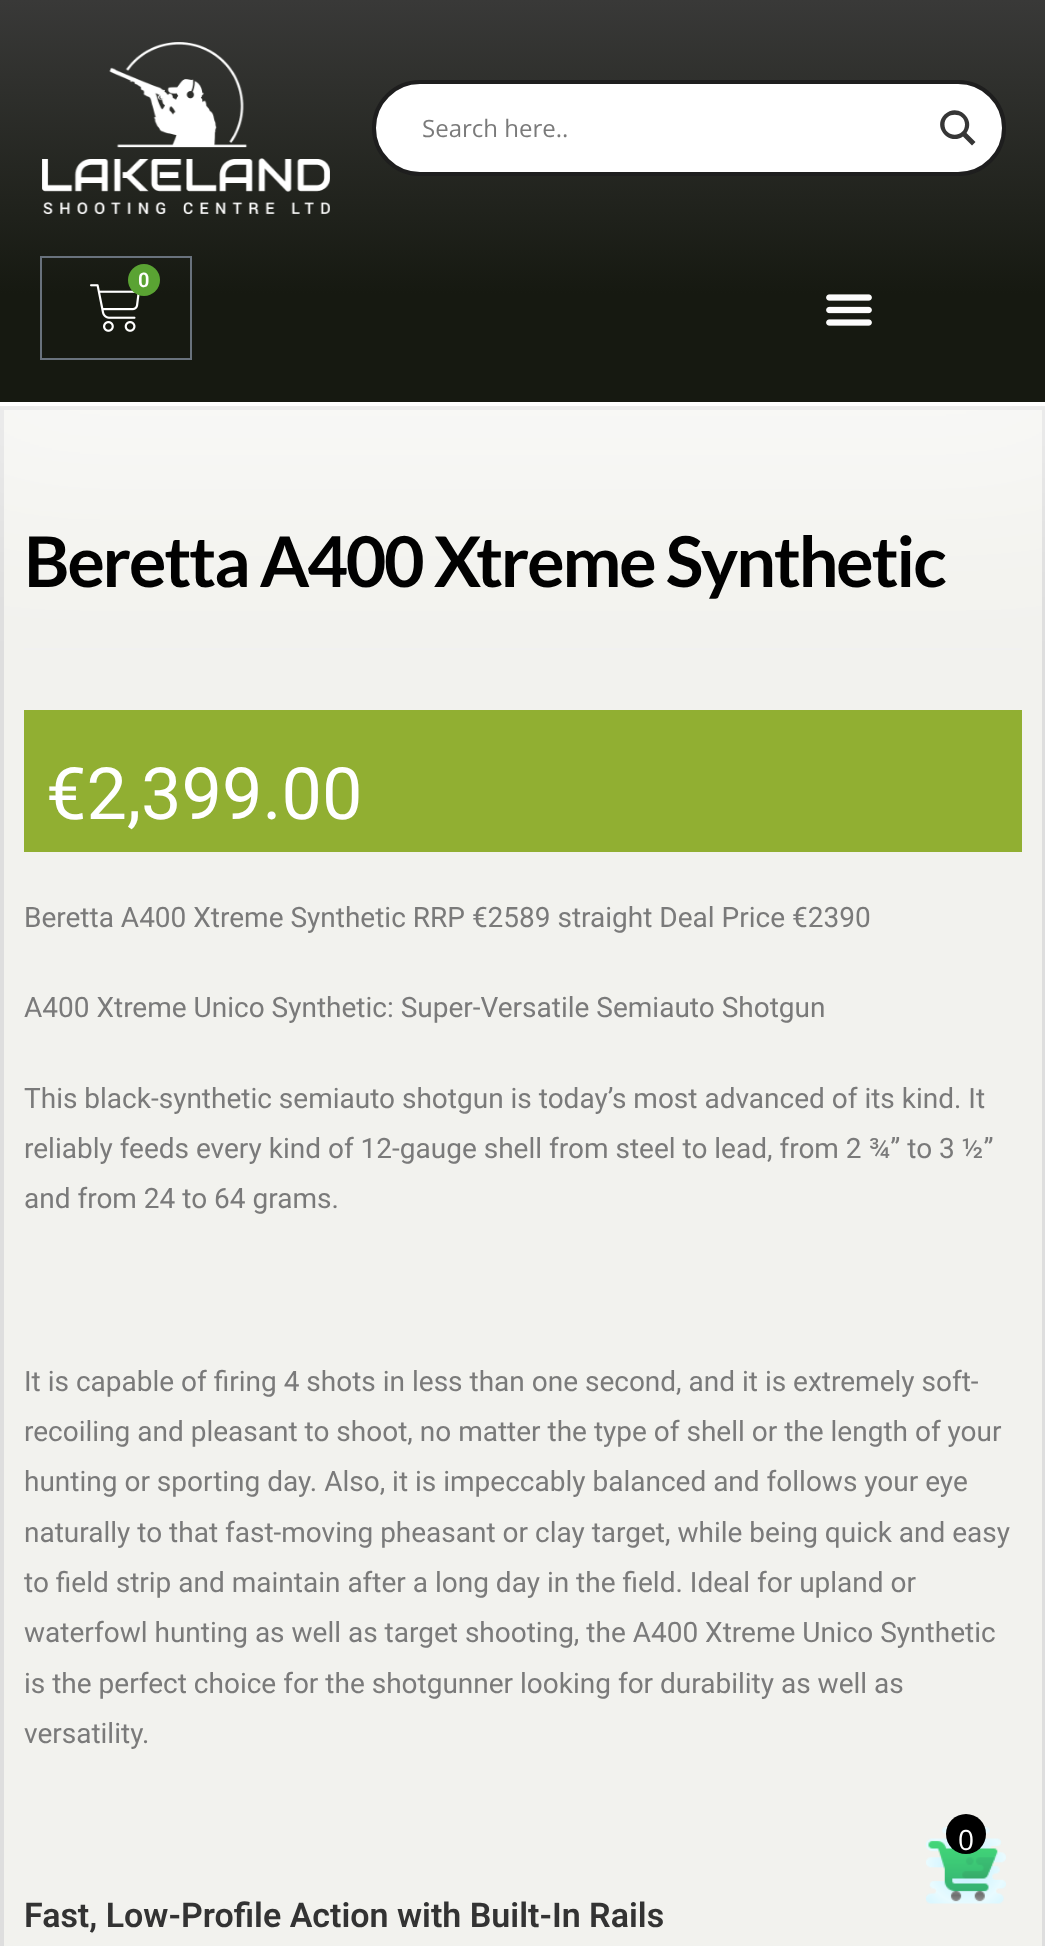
<svg xmlns="http://www.w3.org/2000/svg" width="1045" height="1946" viewBox="0 0 1045 1946">
  <defs>
    <filter id="blur1" x="-50%" y="-200%" width="200%" height="500%"><feGaussianBlur stdDeviation="83"/></filter>
    <linearGradient id="g1" gradientUnits="userSpaceOnUse" x1="523" y1="0" x2="523" y2="402"><stop offset="0" stop-color="#393938"/><stop offset="0.73" stop-color="#161911"/></linearGradient>
  </defs>
  <rect width="100%" height="100%" fill="#f2f2ee"/>
  <rect x="2" y="408" width="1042" height="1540" fill="none" stroke="#dedede" stroke-width="4"/>
  <rect x="24" y="648" width="998" height="2" fill="#f1f1f1"/>
  <rect x="24" y="710" width="998" height="142" fill="#91af32"/>
  <rect x="-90" y="-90" width="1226" height="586" fill="#ffffff" fill-opacity="0.5" filter="url(#blur1)"/>
  <rect x="0" y="0" width="1045" height="402" fill="url(#g1)"/>
  <rect x="0" y="402" width="1045" height="4" fill="#ffffff"/>
  <image x="42" y="42" width="288" height="172" href="img1.png"/>
  <rect x="374" y="82" width="630" height="92" rx="46" fill="#ffffff" stroke="#1e1e1e" stroke-width="4"/>
  <text x="422" y="137" font-family="Open Sans" font-size="24" fill="#7a7a7a">Search here..</text>
  <path d="M975.5 142L966.5 133C976.5 119 957.5 102 944.5 114.5C932 127 949 146 963 136.5L972 145.5ZM944.5 124.5C944.5 111.5 965 111.5 965 124.5C965 138 944.5 138 944.5 124.5Z" fill="#363636"/>
  <rect x="41" y="257" width="150" height="102" fill="none" stroke="#69727d" stroke-width="2"/>
  <image x="90" y="284" width="50" height="48" href="img2.png"/>
  <circle cx="144" cy="280" r="16" fill="#5aa333"/>
  <text x="138" y="287" font-family="Roboto" font-size="20" font-weight="600" fill="#ffffff">0</text>
  <image x="826" y="294" width="46" height="32" href="img3.png"/>
  <text x="24" y="587" font-family="Lato" font-size="70" font-weight="bold" letter-spacing="-2.2" fill="#010101">Beretta A400 Xtreme Synthetic</text>
  <text x="46" y="819" font-family="Roboto" font-size="72" fill="#ffffff">€2,399.00</text>
  <text x="24" y="927" font-family="Roboto" font-size="28" fill="#7a7a7a">Beretta A400 Xtreme Synthetic RRP €2589 straight Deal Price €2390</text>
  <text x="24" y="1017" font-family="Roboto" font-size="28" fill="#7a7a7a">A400 Xtreme Unico Synthetic: Super-Versatile Semiauto Shotgun</text>
  <text x="24" y="1108" font-family="Roboto" font-size="28" fill="#7a7a7a">This black-synthetic semiauto shotgun is today’s most advanced of its kind. It</text>
  <text x="24" y="1158" font-family="Roboto" font-size="28" fill="#7a7a7a">reliably feeds every kind of 12-gauge shell from steel to lead, from 2 ¾” to 3 ½”</text>
  <text x="24" y="1208" font-family="Roboto" font-size="28" fill="#7a7a7a">and from 24 to 64 grams.</text>
  <text x="24" y="1391" font-family="Roboto" font-size="28" fill="#7a7a7a">It is capable of firing 4 shots in less than one second, and it is extremely soft-</text>
  <text x="24" y="1441" font-family="Roboto" font-size="28" fill="#7a7a7a">recoiling and pleasant to shoot, no matter the type of shell or the length of your</text>
  <text x="24" y="1491" font-family="Roboto" font-size="28" fill="#7a7a7a">hunting or sporting day. Also, it is impeccably balanced and follows your eye</text>
  <text x="24" y="1542" font-family="Roboto" font-size="28" fill="#7a7a7a">naturally to that fast-moving pheasant or clay target, while being quick and easy</text>
  <text x="24" y="1592" font-family="Roboto" font-size="28" fill="#7a7a7a">to field strip and maintain after a long day in the field. Ideal for upland or</text>
  <text x="24" y="1642" font-family="Roboto" font-size="28" fill="#7a7a7a">waterfowl hunting as well as target shooting, the A400 Xtreme Unico Synthetic</text>
  <text x="24" y="1693" font-family="Roboto" font-size="28" fill="#7a7a7a">is the perfect choice for the shotgunner looking for durability as well as</text>
  <text x="24" y="1743" font-family="Roboto" font-size="28" fill="#7a7a7a">versatility.</text>
  <text x="24" y="1927" font-family="Roboto" font-size="34" font-weight="600" fill="#333333">Fast, Low-Profile Action with Built-In Rails</text>
  <image x="926" y="1827" width="80" height="77" href="img4.png"/>
  <circle cx="966" cy="1834" r="20" fill="#000000"/>
  <text x="958" y="1850" font-family="Open Sans" font-size="28" fill="#ffffff">0</text>
</svg>
